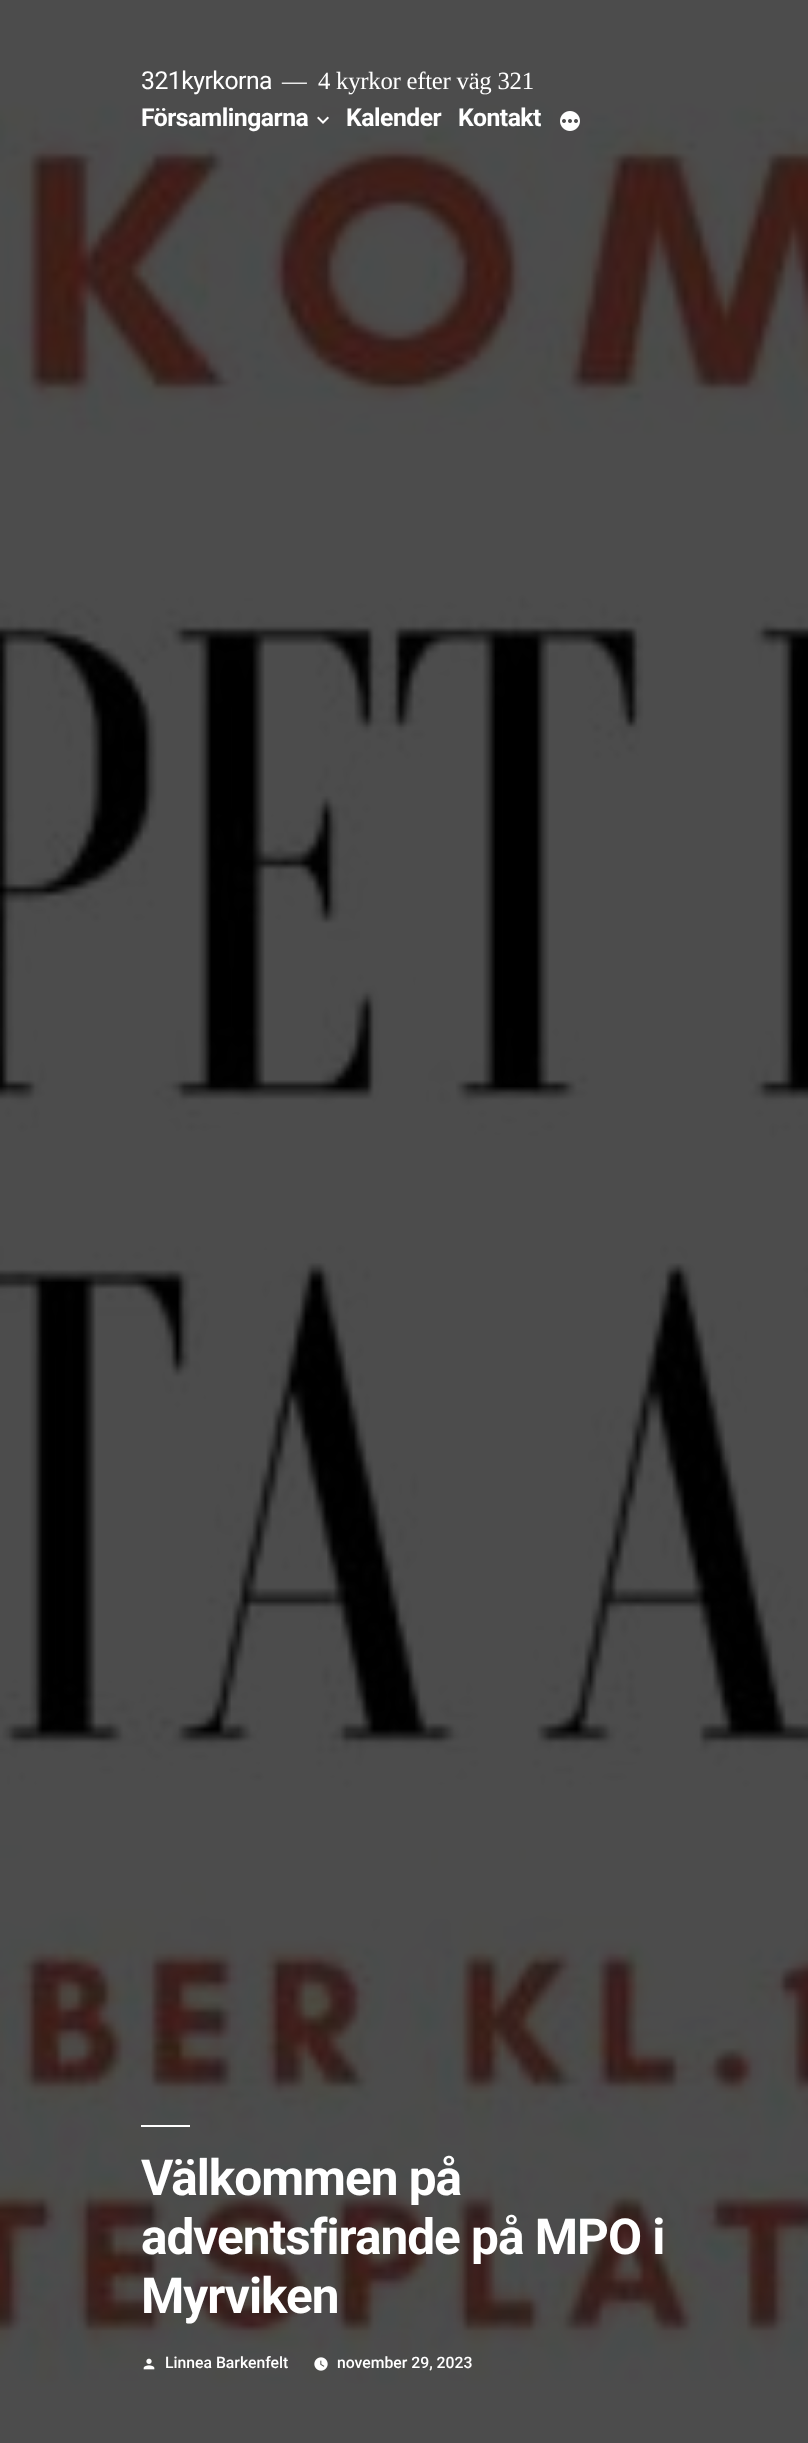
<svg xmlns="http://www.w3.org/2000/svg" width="808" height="2443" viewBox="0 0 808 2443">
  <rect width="100%" height="100%" fill="#ffffff"/>
  <image x="0" y="0" width="808" height="2443" href="img3.png"/>
  <text x="141" y="89" font-family="Roboto" font-size="24.75" letter-spacing="-0.5" fill="#ffffff">321kyrkorna</text>
  <text x="282" y="89" font-family="Liberation Serif" font-size="24.75" letter-spacing="-0.25" fill="#ffffff">—</text>
  <text x="318" y="89" font-family="Liberation Serif" font-size="24.75" letter-spacing="-0.25" fill="#ffffff">4 kyrkor efter väg 321</text>
  <text x="141" y="126" font-family="Roboto" font-size="24.75" font-weight="bold" letter-spacing="-0.5" fill="#ffffff">Församlingarna</text>
  <image x="317" y="116" width="12" height="8" href="img1.png"/>
  <text x="346" y="126" font-family="Roboto" font-size="24.75" font-weight="bold" letter-spacing="-0.5" fill="#ffffff">Kalender</text>
  <text x="458" y="126" font-family="Roboto" font-size="24.75" font-weight="bold" letter-spacing="-0.5" fill="#ffffff">Kontakt</text>
  <image x="560" y="111" width="20" height="20" href="img2.png"/>
  <rect x="141" y="2125" width="49" height="2" fill="#ffffff"/>
  <text x="141" y="2195" font-family="Roboto" font-size="49.5" font-weight="bold" letter-spacing="-1" fill="#ffffff">Välkommen på</text>
  <text x="141" y="2254" font-family="Roboto" font-size="49.5" font-weight="bold" letter-spacing="-1" fill="#ffffff">adventsfirande på MPO i</text>
  <text x="141" y="2313" font-family="Roboto" font-size="49.5" font-weight="bold" letter-spacing="-1" fill="#ffffff">Myrviken</text>
  <image x="143" y="2358" width="12" height="12" href="img4.png"/>
  <text x="165" y="2368" font-family="Roboto" font-size="15.75" font-weight="500" fill="#ffffff">Linnea Barkenfelt</text>
  <image x="314" y="2357" width="14" height="14" href="img5.png"/>
  <text x="337" y="2368" font-family="Roboto" font-size="15.75" font-weight="500" fill="#ffffff">november 29, 2023</text>
</svg>
